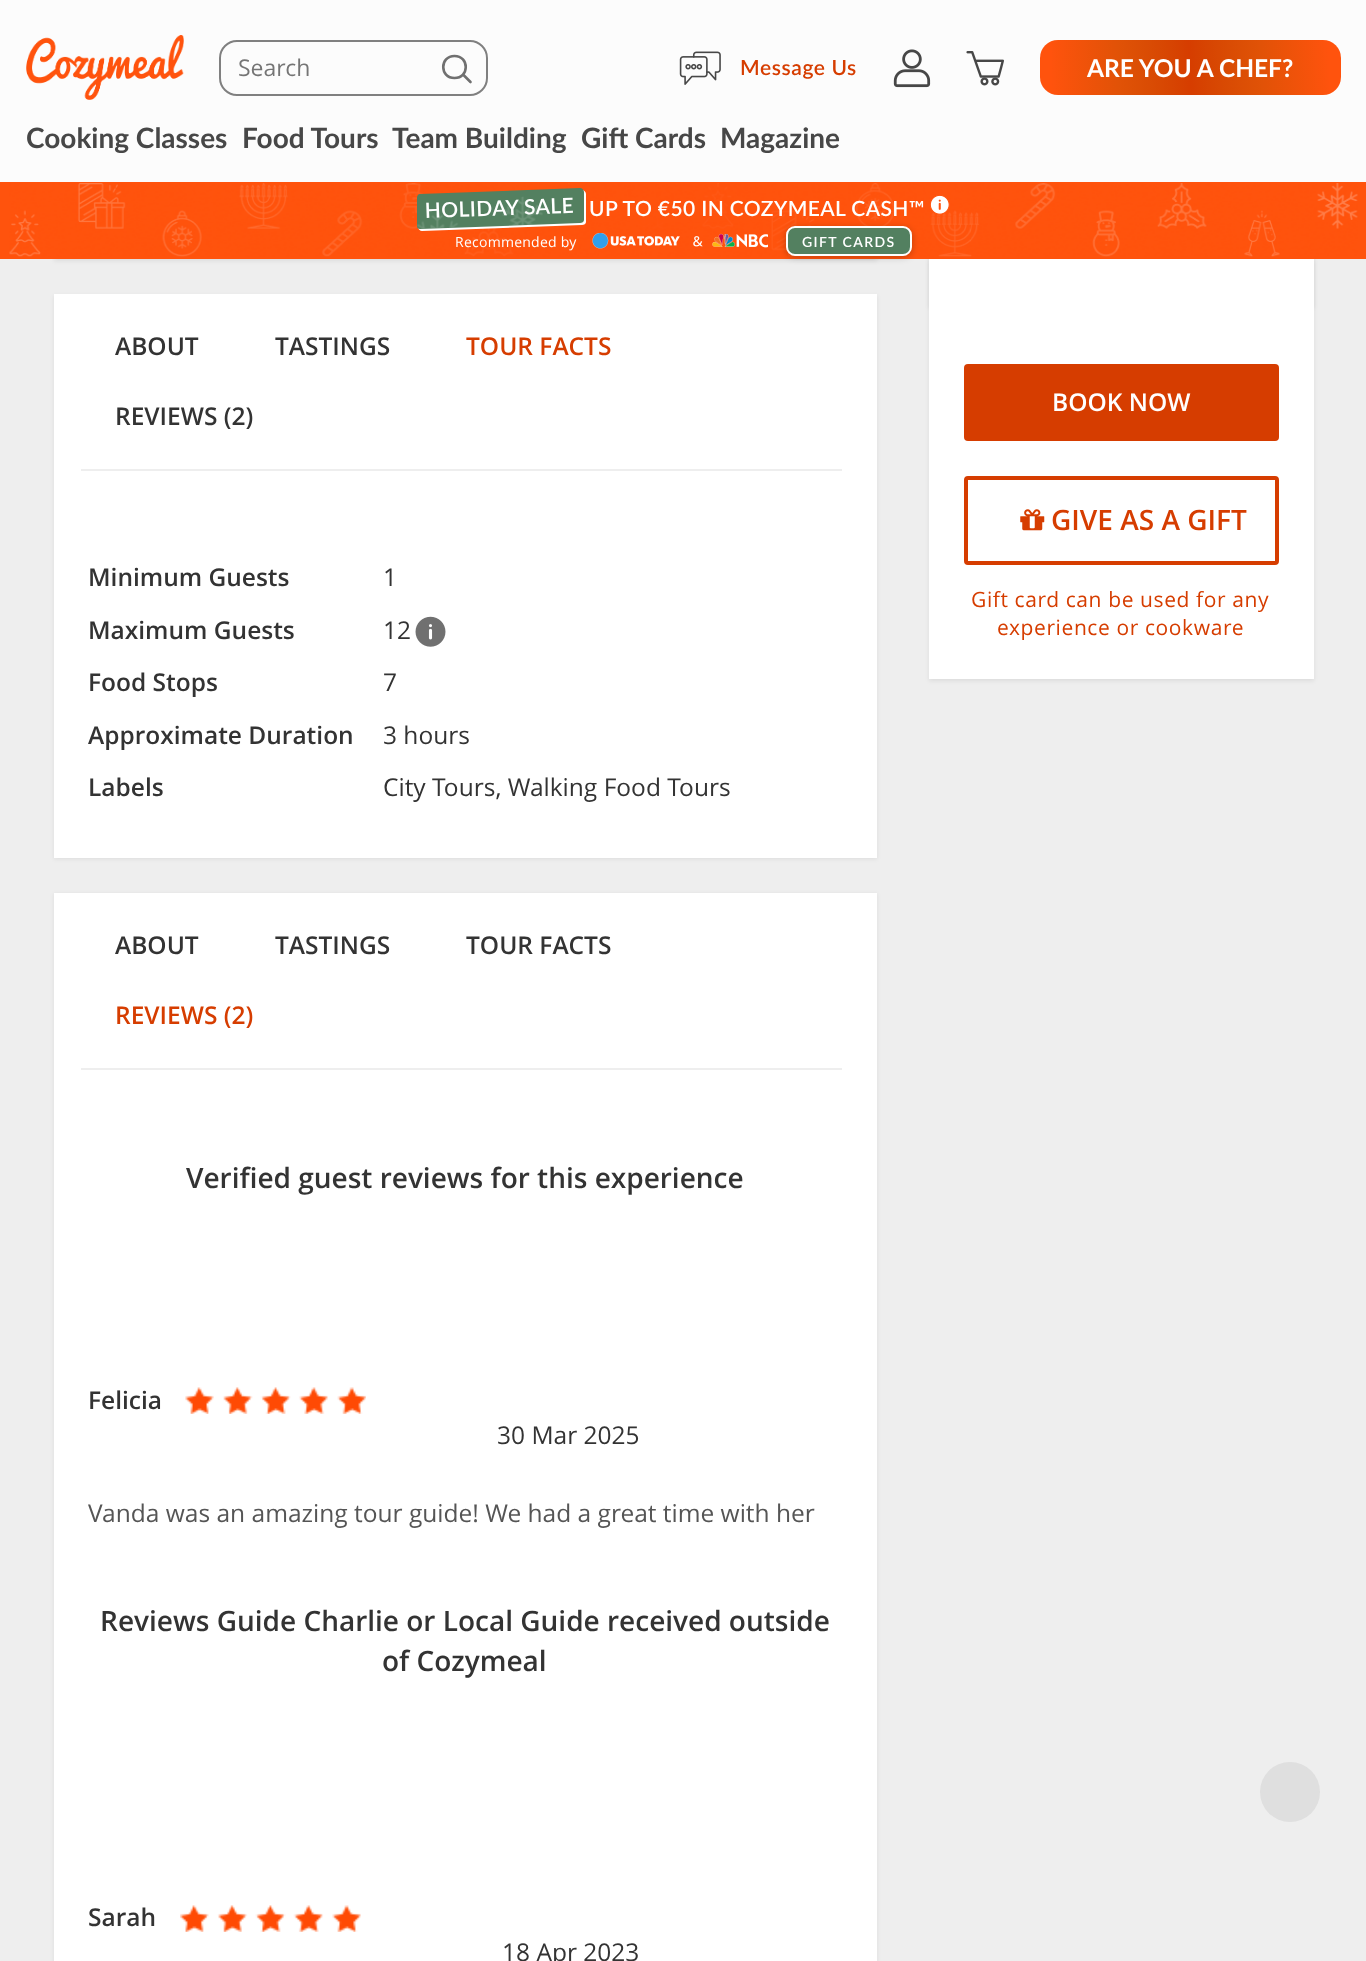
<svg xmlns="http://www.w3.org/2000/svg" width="1366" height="1961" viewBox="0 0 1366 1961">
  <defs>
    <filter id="blur1" x="-50%" y="-200%" width="200%" height="500%"><feGaussianBlur stdDeviation="2"/></filter>
    <linearGradient id="g1" gradientUnits="userSpaceOnUse" x1="1038" y1="75" x2="1342" y2="59"><stop offset="0.04" stop-color="#c25100" stop-opacity="0"/><stop offset="0.27" stop-color="#c25100" stop-opacity="0.5"/><stop offset="0.5" stop-color="#d63d00"/><stop offset="0.73" stop-color="#c25100" stop-opacity="0.5"/><stop offset="0.96" stop-color="#c25100" stop-opacity="0"/></linearGradient>
    <filter id="blur2" x="-50%" y="-200%" width="200%" height="500%"><feGaussianBlur stdDeviation="3.5"/></filter>
  </defs>
  <rect width="100%" height="100%" fill="#eeeeee"/>
  <rect x="54" y="-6" width="823" height="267" fill="#000000" fill-opacity="0.08" filter="url(#blur1)"/>
  <rect x="929" y="-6" width="385" height="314" fill="#000000" fill-opacity="0.08" filter="url(#blur1)"/>
  <rect x="0" y="0" width="1366" height="182" fill="#fcfcfc"/>
  <image x="26" y="35" width="158" height="65" href="img1.png"/>
  <rect x="220" y="41" width="267" height="54" rx="17" fill="none" stroke="#808080" stroke-width="2"/>
  <text x="238" y="76" font-family="Open Sans" font-size="23" fill="#757575">Search</text>
  <path d="M454.5 78C469.5 78 469.5 56 454.5 56C439.5 56 439.5 78 454.5 78ZM463 74.5L470.5 82" fill="none" stroke="#707070" stroke-width="2.6" stroke-linecap="round" stroke-linejoin="round"/>
  <image x="679" y="51" width="42" height="34" href="img2.png"/>
  <text x="740" y="75" font-family="Lato" font-size="21" font-weight="600" letter-spacing="0.6" fill="#d63d00">Message Us</text>
  <image x="893" y="49" width="38" height="39" href="img3.png"/>
  <image x="966" y="51" width="38" height="35" href="img4.png"/>
  <rect x="1040" y="40" width="301" height="55" rx="18" fill="#ff530d"/>
  <rect x="1052" y="40" width="277" height="55" fill="url(#g1)"/>
  <text x="1087" y="77" font-family="Lato" font-size="24.5" font-weight="bold" fill="#ffffff">ARE YOU A CHEF?</text>
  <text x="26" y="148" font-family="Lato" font-size="28" font-weight="bold" fill="#474747">Cooking Classes</text>
  <text x="242" y="148" font-family="Lato" font-size="28" font-weight="bold" fill="#474747">Food Tours</text>
  <text x="392" y="148" font-family="Lato" font-size="28" font-weight="bold" fill="#474747">Team Building</text>
  <text x="581" y="148" font-family="Lato" font-size="28" font-weight="bold" fill="#474747">Gift Cards</text>
  <text x="720" y="148" font-family="Lato" font-size="28" font-weight="bold" fill="#474747">Magazine</text>
  <rect x="0" y="182" width="1366" height="77" fill="#ff530d"/>
  <image x="9" y="183" width="1349" height="74" href="img5.png"/>
  <path d="M422 196L582 190C584 190 586 192 586 194V222C586 224 584 225 582 225L422 231C420 231 418 229 418 227V199C418 198 420 196 422 196Z" fill="#ffffff"/>
  <path d="M420 194L580 188C582 188 584 190 584 192V220C584 222 582 223 580 223L420 229C418 229 417 228 417 226V198C417 196 418 194 420 194Z" fill="#538060"/>
  <image x="417" y="196" width="127" height="33" href="img6.png"/>
  <text x="425" y="218" transform="rotate(-2 425 218)" font-family="Lato" font-size="21" font-weight="600" letter-spacing="0.4" fill="#ffffff">HOLIDAY SALE</text>
  <text x="589" y="216" font-family="Lato" font-size="21" font-weight="600" letter-spacing="0.4" fill="#ffffff">UP TO €50 IN COZYMEAL CASH™</text>
  <image x="930" y="195" width="20" height="20" href="img7.png"/>
  <text x="455" y="247" font-family="Open Sans" font-size="14" letter-spacing="0.25" fill="#ffffff">Recommended by</text>
  <image x="592" y="233" width="88" height="16" href="img8.png"/>
  <image x="693" y="236" width="10" height="11" href="img9.png"/>
  <image x="712" y="233" width="56" height="15" href="img10.png"/>
  <rect x="786" y="228" width="126" height="29" rx="9" fill="#000000" fill-opacity="0.25" filter="url(#blur2)"/>
  <rect x="787" y="227" width="124" height="28" rx="8" fill="#538060" stroke="#ffffff" stroke-width="2"/>
  <text x="802" y="247" font-family="Lato" font-size="14" font-weight="600" letter-spacing="1.4" fill="#ffffff">GIFT CARDS</text>
  <rect x="54" y="296" width="823" height="563" fill="#000000" fill-opacity="0.08" filter="url(#blur1)"/>
  <rect x="54" y="294" width="823" height="564" fill="#ffffff"/>
  <rect x="81" y="469" width="761" height="2" fill="#eeeeee"/>
  <text x="115" y="355" font-family="Open Sans" font-size="24.5" font-weight="600" fill="#333333">ABOUT</text>
  <text x="275" y="355" font-family="Open Sans" font-size="24.5" font-weight="600" fill="#333333">TASTINGS</text>
  <text x="466" y="355" font-family="Open Sans" font-size="24.5" font-weight="600" fill="#d63d00">TOUR FACTS</text>
  <text x="115" y="425" font-family="Open Sans" font-size="24.5" font-weight="600" fill="#333333">REVIEWS (2)</text>
  <text x="88" y="586" font-family="Open Sans" font-size="24.5" font-weight="600" fill="#333333">Minimum Guests</text>
  <text x="383" y="586" font-family="Open Sans" font-size="24.5" fill="#333333">1</text>
  <text x="88" y="639" font-family="Open Sans" font-size="24.5" font-weight="600" fill="#333333">Maximum Guests</text>
  <text x="383" y="639" font-family="Open Sans" font-size="24.5" fill="#333333">12</text>
  <image x="415" y="616" width="31" height="31" href="img11.png"/>
  <text x="88" y="691" font-family="Open Sans" font-size="24.5" font-weight="600" fill="#333333">Food Stops</text>
  <text x="383" y="691" font-family="Open Sans" font-size="24.5" fill="#333333">7</text>
  <text x="88" y="744" font-family="Open Sans" font-size="24.5" font-weight="600" fill="#333333">Approximate Duration</text>
  <text x="383" y="744" font-family="Open Sans" font-size="24.5" fill="#333333">3 hours</text>
  <text x="88" y="796" font-family="Open Sans" font-size="24.5" font-weight="600" fill="#333333">Labels</text>
  <text x="383" y="796" font-family="Open Sans" font-size="24.5" fill="#333333">City Tours, Walking Food Tours</text>
  <rect x="54" y="894" width="823" height="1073" fill="#000000" fill-opacity="0.08" filter="url(#blur1)"/>
  <rect x="54" y="893" width="823" height="1068" fill="#ffffff"/>
  <rect x="81" y="1068" width="761" height="2" fill="#eeeeee"/>
  <text x="115" y="954" font-family="Open Sans" font-size="24.5" font-weight="600" fill="#333333">ABOUT</text>
  <text x="275" y="954" font-family="Open Sans" font-size="24.5" font-weight="600" fill="#333333">TASTINGS</text>
  <text x="466" y="954" font-family="Open Sans" font-size="24.5" font-weight="600" fill="#333333">TOUR FACTS</text>
  <text x="115" y="1024" font-family="Open Sans" font-size="24.5" font-weight="600" fill="#d63d00">REVIEWS (2)</text>
  <text x="186" y="1188" font-family="Open Sans" font-size="28" font-weight="600" fill="#333333">Verified guest reviews for this experience</text>
  <text x="88" y="1409" font-family="Open Sans" font-size="24.5" font-weight="600" fill="#333333">Felicia</text>
  <image x="185" y="1387" width="181" height="27" href="img12.png"/>
  <text x="497" y="1444" font-family="Open Sans" font-size="24.5" fill="#333333">30 Mar 2025</text>
  <text x="88" y="1522" font-family="Open Sans" font-size="24.5" fill="#555555">Vanda was an amazing tour guide! We had a great time with her</text>
  <text x="100" y="1631" font-family="Open Sans" font-size="28" font-weight="600" fill="#333333">Reviews Guide Charlie or Local Guide received outside</text>
  <text x="382" y="1671" font-family="Open Sans" font-size="28" font-weight="600" fill="#333333">of Cozymeal</text>
  <text x="88" y="1926" font-family="Open Sans" font-size="24.5" font-weight="600" fill="#333333">Sarah</text>
  <image x="180" y="1905" width="181" height="27" href="img13.png"/>
  <text x="502" y="1961" font-family="Open Sans" font-size="24.5" fill="#333333">18 Apr 2023</text>
  <rect x="929" y="261" width="385" height="420" fill="#000000" fill-opacity="0.08" filter="url(#blur1)"/>
  <rect x="929" y="259" width="385" height="420" fill="#ffffff"/>
  <rect x="964" y="364" width="315" height="77" rx="4" fill="#d63d00"/>
  <text x="1052" y="411" font-family="Open Sans" font-size="24.5" font-weight="600" fill="#ffffff">BOOK NOW</text>
  <rect x="966" y="478" width="311" height="85" rx="2" fill="none" stroke="#d63d00" stroke-width="4"/>
  <image x="1020" y="509" width="25" height="22" href="img14.png"/>
  <text x="1051" y="530" font-family="Open Sans" font-size="28" font-weight="600" fill="#d63d00">GIVE AS A GIFT</text>
  <text x="971" y="607" font-family="Open Sans" font-size="21" letter-spacing="0.6" fill="#d63d00">Gift card can be used for any</text>
  <text x="997" y="635" font-family="Open Sans" font-size="21" letter-spacing="0.6" fill="#d63d00">experience or cookware</text>
  <circle cx="1290" cy="1792" r="30" fill="#dfdfdf"/>
</svg>
